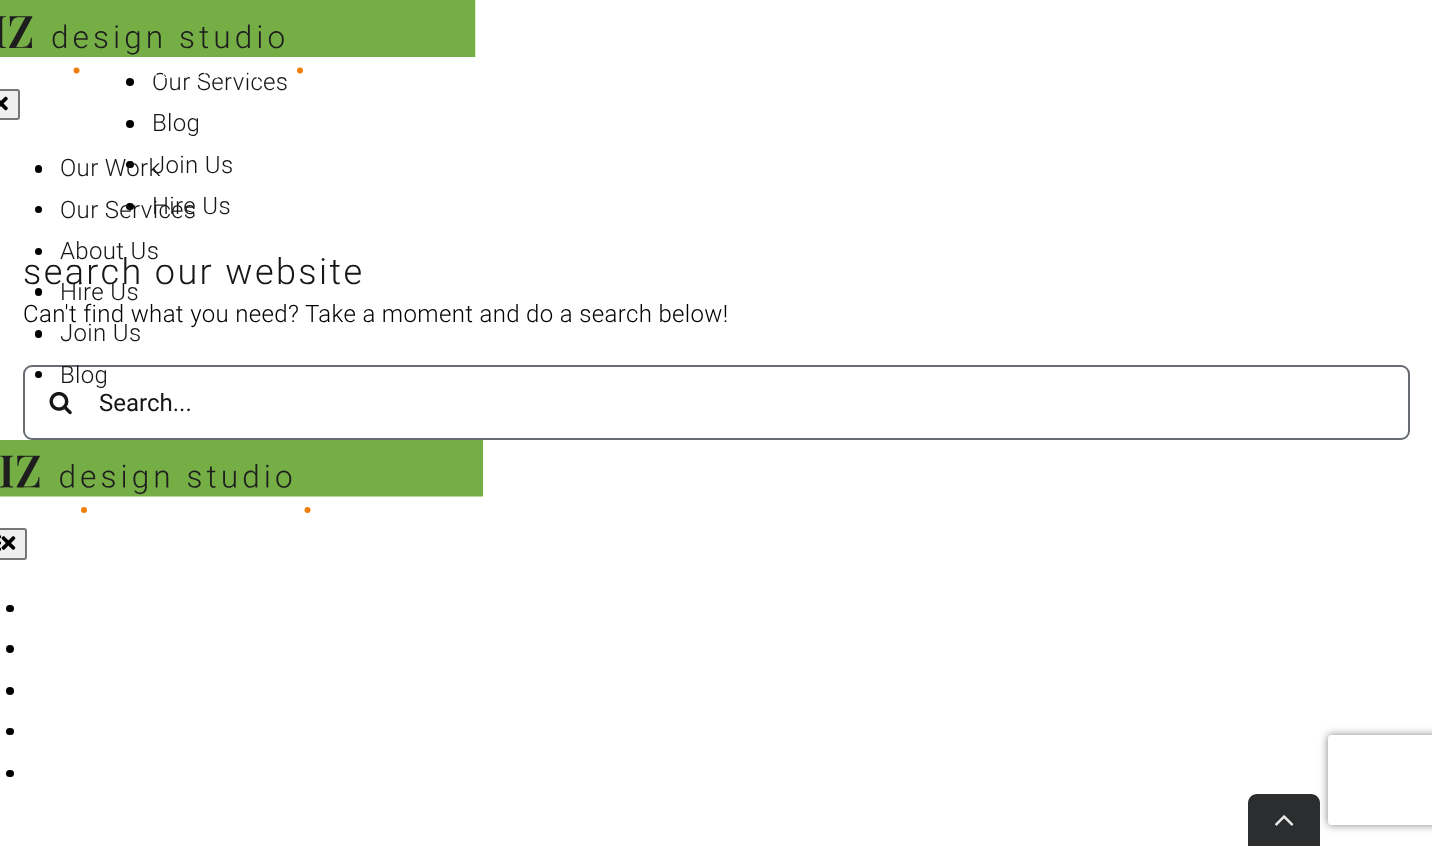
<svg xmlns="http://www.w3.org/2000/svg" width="1432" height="846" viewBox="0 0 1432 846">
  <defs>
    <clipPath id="clip1"><path d="M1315 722H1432V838H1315ZM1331 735H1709C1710.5 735 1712 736.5 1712 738V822C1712 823.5 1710.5 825 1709 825H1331C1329.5 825 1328 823.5 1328 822V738C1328 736.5 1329.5 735 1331 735Z" clip-rule="evenodd"/></clipPath>
    <filter id="blur1" x="-50%" y="-200%" width="200%" height="500%"><feGaussianBlur stdDeviation="4"/></filter>
  </defs>
  <rect width="100%" height="100%" fill="#ffffff"/>
  <circle cx="130" cy="82" r="4" fill="#000000"/>
  <text x="152" y="90" font-family="Roboto" font-size="24" font-weight="300" letter-spacing="0.35" fill="#141617">Our Services</text>
  <circle cx="130" cy="124" r="4" fill="#000000"/>
  <text x="152" y="131" font-family="Roboto" font-size="24" font-weight="300" letter-spacing="0.35" fill="#141617">Blog</text>
  <rect x="126" y="161" width="8" height="7" rx="3.5" fill="#000000"/>
  <text x="152" y="173" font-family="Roboto" font-size="24" font-weight="300" letter-spacing="0.35" fill="#141617">Join Us</text>
  <rect x="126" y="203" width="8" height="7" rx="3.5" fill="#000000"/>
  <text x="152" y="214" font-family="Roboto" font-size="24" font-weight="300" letter-spacing="0.35" fill="#141617">Hire Us</text>
  <text x="23" y="284" font-family="Roboto" font-size="36" font-weight="300" letter-spacing="2.4" fill="#141617">search our website</text>
  <text x="23" y="322" font-family="Roboto" font-size="24" font-weight="300" letter-spacing="0.35" fill="#000000">Can't find what you need? Take a moment and do a search below!</text>
  <rect x="24" y="366" width="1385" height="73" rx="8" fill="none" stroke="#676c72" stroke-width="2"/>
  <image x="49" y="391" width="23" height="24" href="img1.png"/>
  <text x="99" y="411" font-family="Roboto" font-size="24" fill="#141617">Search...</text>
  <image x="0" y="0" width="476" height="82" href="img2.png"/>
  <rect x="-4" y="90" width="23" height="29" rx="2" fill="#efefef" stroke="#767676" stroke-width="2"/>
  <image x="0" y="96" width="8" height="15" href="img3.png"/>
  <rect x="35" y="165" width="7" height="8" rx="3.5" fill="#000000"/>
  <text x="60" y="176" font-family="Roboto" font-size="24" font-weight="300" letter-spacing="0.35" fill="#141617">Our Work</text>
  <circle cx="38.5" cy="209.5" r="3.5" fill="#000000"/>
  <text x="60" y="218" font-family="Roboto" font-size="24" font-weight="300" letter-spacing="0.35" fill="#141617">Our Services</text>
  <circle cx="38.5" cy="251.5" r="3.5" fill="#000000"/>
  <text x="60" y="259" font-family="Roboto" font-size="24" font-weight="300" letter-spacing="0.35" fill="#141617">About Us</text>
  <rect x="35" y="288" width="7" height="8" rx="3.5" fill="#000000"/>
  <text x="60" y="300" font-family="Roboto" font-size="24" font-weight="300" letter-spacing="0.35" fill="#141617">Hire Us</text>
  <rect x="35" y="330" width="7" height="8" rx="3.5" fill="#000000"/>
  <text x="60" y="341" font-family="Roboto" font-size="24" font-weight="300" letter-spacing="0.35" fill="#141617">Join Us</text>
  <circle cx="38.5" cy="374.5" r="3.5" fill="#000000"/>
  <text x="60" y="383" font-family="Roboto" font-size="24" font-weight="300" letter-spacing="0.35" fill="#141617">Blog</text>
  <image x="0" y="440" width="483" height="73" href="img4.png"/>
  <path d="M0 528H24C25.5 528 27 529.5 27 531V557C27 558.5 25.5 560 24 560H0Z" fill="#efefef"/>
  <rect x="-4" y="529" width="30" height="30" rx="2" fill="none" stroke="#767676" stroke-width="2"/>
  <image x="0" y="535" width="1" height="16" href="img5.png"/>
  <image x="1" y="536" width="15" height="14" href="img6.png"/>
  <rect x="6" y="605" width="8" height="7" rx="3.5" fill="#000000"/>
  <circle cx="10" cy="649" r="4" fill="#000000"/>
  <circle cx="10" cy="691" r="4" fill="#000000"/>
  <rect x="6" y="728" width="8" height="7" rx="3.5" fill="#000000"/>
  <rect x="6" y="770" width="8" height="7" rx="3.5" fill="#000000"/>
  <g clip-path="url(#clip1)">
    <rect x="1328" y="735" width="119" height="90" rx="3" fill="#808080" filter="url(#blur1)"/>
  </g>
  <path d="M1257 794H1311C1316 794 1320 798 1320 803V846H1248V803C1248 798 1252 794 1257 794Z" fill="#2b2d2e"/>
  <image x="1275" y="815" width="19" height="11" href="img7.png"/>
</svg>
